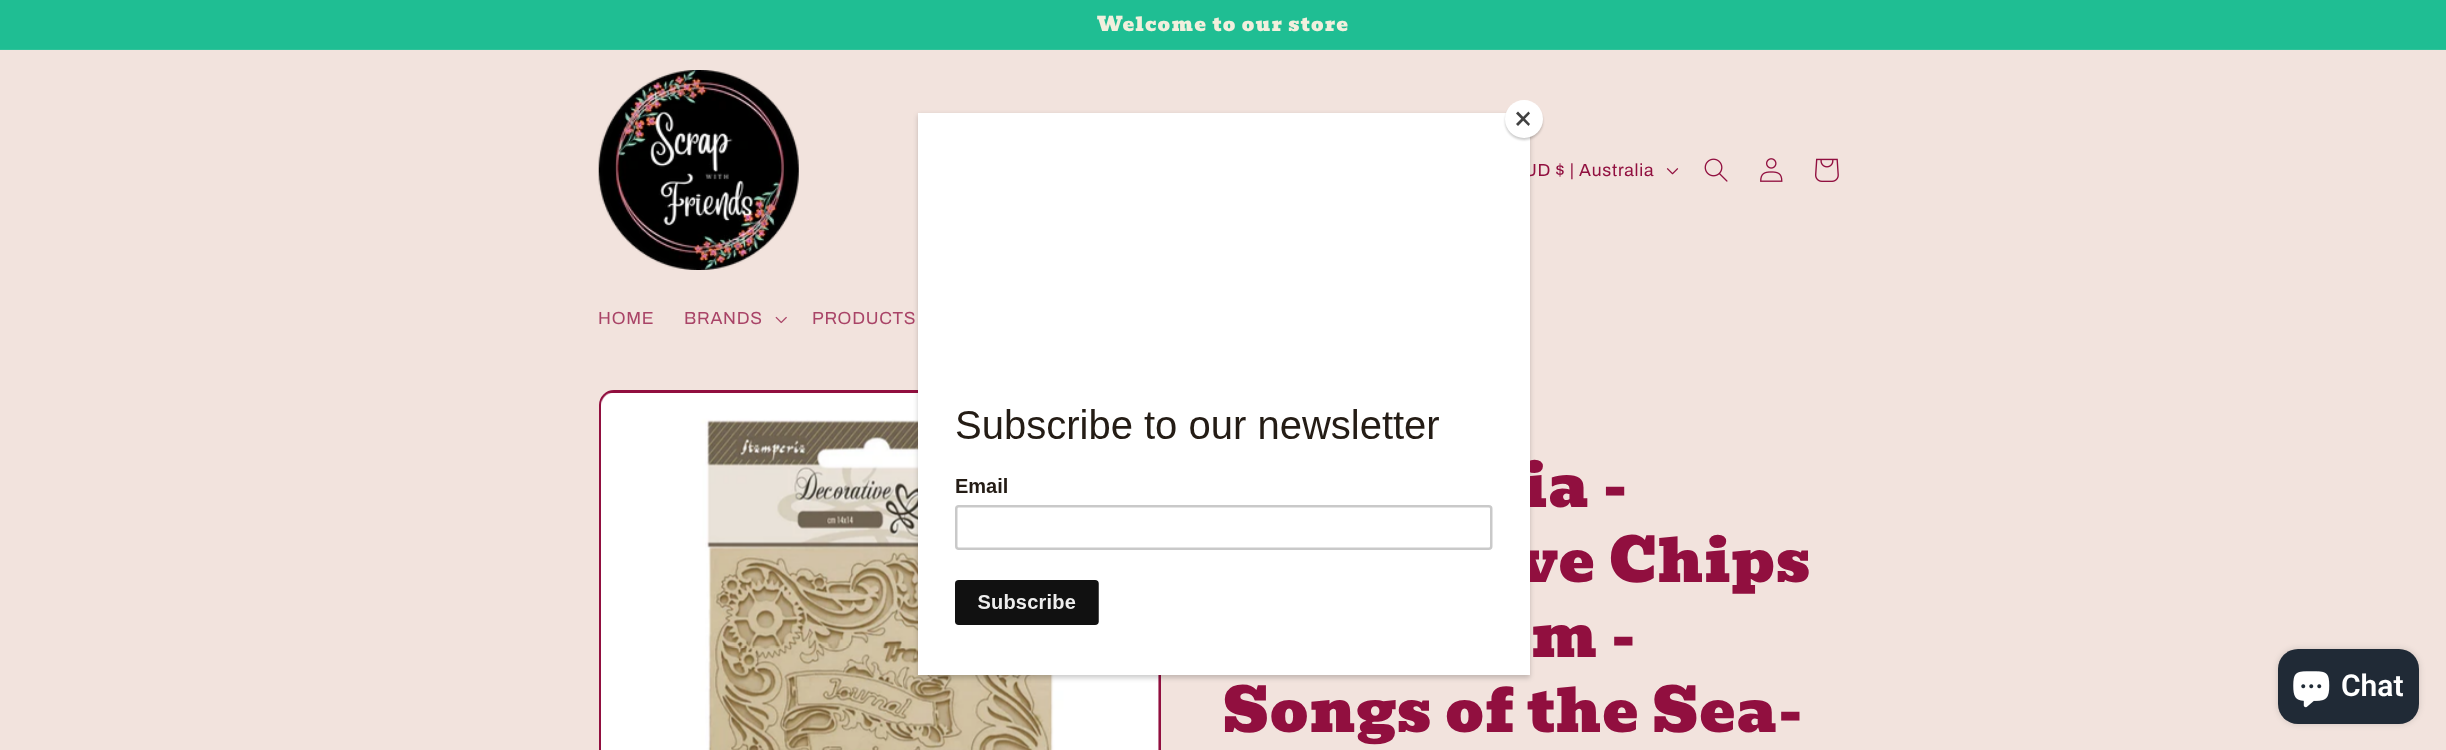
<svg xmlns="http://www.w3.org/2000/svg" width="2446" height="750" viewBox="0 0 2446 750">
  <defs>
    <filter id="blur1" x="-50%" y="-200%" width="200%" height="500%"><feGaussianBlur stdDeviation="2.5"/></filter>
    <filter id="blur2" x="-50%" y="-200%" width="200%" height="500%"><feGaussianBlur stdDeviation="1"/></filter>
    <filter id="blur3" x="-50%" y="-200%" width="200%" height="500%"><feGaussianBlur stdDeviation="3"/></filter>
  </defs>
  <rect width="100%" height="100%" fill="#f2e3dd"/>
  <rect x="0" y="0" width="2446" height="49" fill="#1fbe93"/>
  <rect x="0" y="49" width="2446" height="1" fill="#30c299"/>
  <text x="1097" y="31" font-family="Bevan" font-size="19.5" letter-spacing="1.25" fill="#f2efdd">Welcome to our store</text>
  <rect x="600.5" y="391.5" width="559" height="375" rx="13.5" fill="none" stroke="#910f3f" stroke-width="3"/>
  <image x="601" y="393" width="558" height="357" href="img8.png"/>
  <rect x="918" y="115" width="612" height="563" fill="#000000" fill-opacity="0.2" filter="url(#blur1)"/>
  <text x="1524" y="176" font-family="Archivo" font-size="17.5" letter-spacing="0.75" fill="#910f3f">UD $ | Australia</text>
  <text x="1521" y="507" font-family="Bevan" font-size="60" letter-spacing="0.9" fill="#910f3f">ia -</text>
  <text x="1517" y="582" font-family="Bevan" font-size="60" letter-spacing="0.9" fill="#910f3f">ve Chips</text>
  <image x="918" y="113" width="612" height="562" href="img1.png"/>
  <rect x="1505" y="103" width="38" height="37" rx="18.5" fill="#000000" fill-opacity="0.2" filter="url(#blur2)"/>
  <circle cx="1524" cy="119" r="19" fill="#ffffff"/>
  <path d="M1528.5 111.5L1530 113.5L1518 126L1516 124Z" fill="#414141"/>
  <path d="M1516 113.5L1518 111.5L1530 124L1528.5 126Z" fill="#414141"/>
  <image x="598" y="70" width="201" height="200" href="img2.png"/>
  <image x="1666" y="168" width="13" height="7" href="img3.png"/>
  <image x="1704" y="158" width="24" height="24" href="img4.png"/>
  <image x="1760" y="158" width="23" height="24" href="img5.png"/>
  <image x="1815" y="158" width="24" height="24" href="img6.png"/>
  <text x="598" y="324" font-family="Archivo" font-size="17.5" letter-spacing="0.75" fill="#a94467">HOME</text>
  <text x="684" y="324" font-family="Archivo" font-size="17.5" letter-spacing="0.75" fill="#a94467">BRANDS</text>
  <image x="775" y="316" width="12" height="8" href="img7.png"/>
  <text x="812" y="324" font-family="Archivo" font-size="17.5" letter-spacing="0.75" fill="#a94467">PRODUCTS</text>
  <text x="1531" y="657" font-family="Bevan" font-size="60" letter-spacing="0.9" fill="#910f3f">m -</text>
  <text x="1223" y="732" font-family="Bevan" font-size="60" letter-spacing="0.9" fill="#910f3f">Songs of the Sea-</text>
  <rect x="2278" y="649" width="141" height="75" rx="20" fill="#000000" fill-opacity="0.15" filter="url(#blur3)"/>
  <rect x="2278" y="649" width="141" height="75" rx="20" fill="#202a36"/>
  <image x="2293" y="671" width="37" height="37" href="img9.png"/>
  <text x="2341" y="696" font-family="Roboto" font-size="30" font-weight="600" fill="#ffffff">Chat</text>
</svg>
